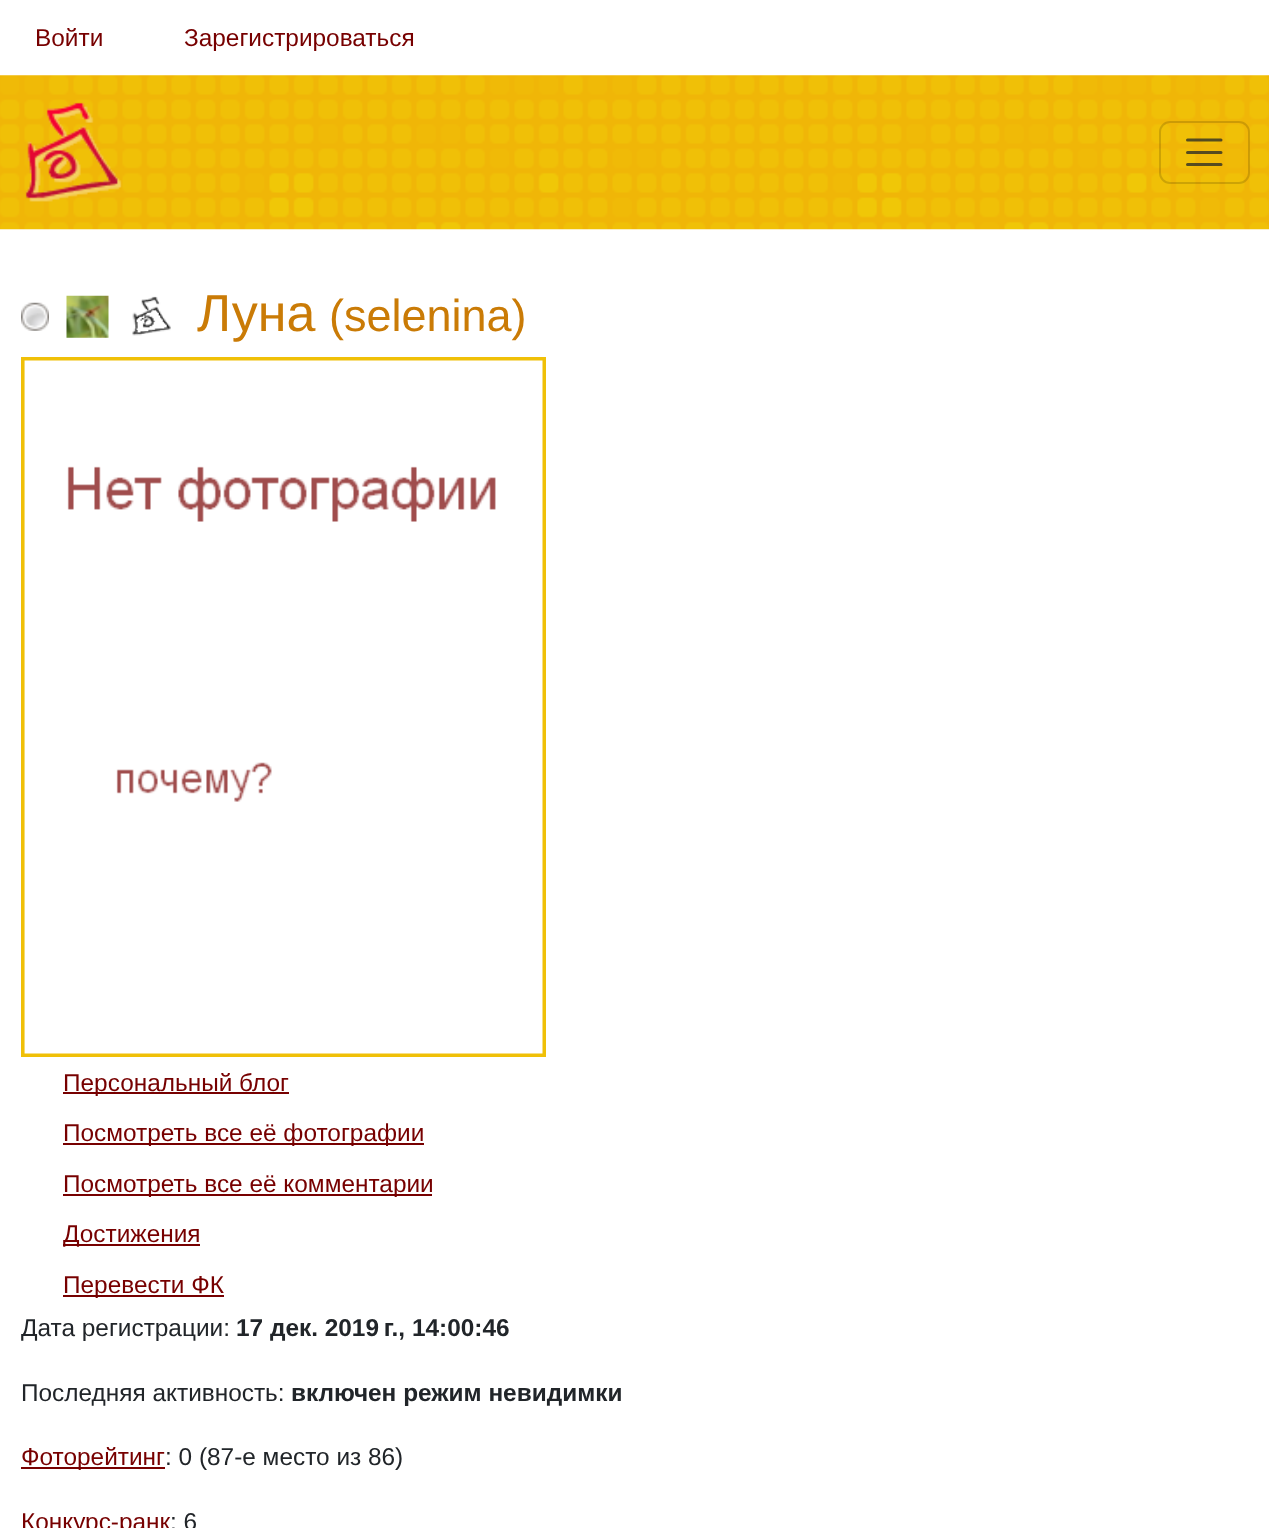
<svg xmlns="http://www.w3.org/2000/svg" width="1269" height="1528" viewBox="0 0 1269 1528">
  <rect width="100%" height="100%" fill="#ffffff"/>
  <text x="35" y="46" font-family="Liberation Sans" font-size="24.4" fill="#770000">Войти</text>
  <text x="184" y="46" font-family="Liberation Sans" font-size="24.4" fill="#770000">Зарегистрироваться</text>
  <image x="0" y="75" width="1269" height="155" href="img1.png"/>
  <image x="25" y="102" width="97" height="100" href="img2.png"/>
  <rect x="1160" y="122" width="89" height="61" rx="10" fill="none" stroke="#000000" stroke-opacity="0.15" stroke-width="2"/>
  <path d="M1187.5 140H1221M1187.5 152.5H1221M1187.5 164.5H1221" fill="none" stroke="#212529" stroke-opacity="0.75" stroke-width="3" stroke-linecap="round"/>
  <image x="21" y="302" width="28" height="29" href="img3.png"/>
  <image x="66" y="295" width="43" height="43" href="img4.png"/>
  <image x="132" y="296" width="39" height="40" href="img5.png"/>
  <text x="197" y="331" font-family="Liberation Sans" font-size="52" fill="#ca7b06">Луна</text>
  <text x="329" y="331" font-family="Liberation Sans" font-size="45" fill="#ca7b06">(selenina)</text>
  <image x="21" y="357" width="525" height="700" href="img6.png"/>
  <rect x="63" y="1092" width="226" height="2" fill="#770000"/>
  <text x="63" y="1091" font-family="Liberation Sans" font-size="24.4" fill="#770000">Персональный блог</text>
  <rect x="63" y="1143" width="361" height="2" fill="#770000"/>
  <text x="63" y="1141" font-family="Liberation Sans" font-size="24.4" fill="#770000">Посмотреть все её фотографии</text>
  <rect x="63" y="1194" width="369" height="2" fill="#770000"/>
  <text x="63" y="1192" font-family="Liberation Sans" font-size="24.4" fill="#770000">Посмотреть все её комментарии</text>
  <rect x="63" y="1244" width="137" height="2" fill="#770000"/>
  <text x="63" y="1242" font-family="Liberation Sans" font-size="24.4" fill="#770000">Достижения</text>
  <rect x="63" y="1295" width="161" height="2" fill="#770000"/>
  <text x="63" y="1293" font-family="Liberation Sans" font-size="24.4" fill="#770000">Перевести ФК</text>
  <text x="21" y="1336" font-family="Liberation Sans" font-size="24.4" fill="#212529">Дата регистрации:</text>
  <text x="236" y="1336" font-family="Liberation Sans" font-size="24.4" font-weight="bold" fill="#212529">17 дек. 2019 г., 14:00:46</text>
  <text x="21" y="1401" font-family="Liberation Sans" font-size="24.4" fill="#212529">Последняя активность:</text>
  <text x="291" y="1401" font-family="Liberation Sans" font-size="24.4" font-weight="bold" fill="#212529">включен режим невидимки</text>
  <rect x="21" y="1467" width="144" height="2" fill="#770000"/>
  <text x="21" y="1465" font-family="Liberation Sans" font-size="24.4" fill="#770000">Фоторейтинг</text>
  <text x="165" y="1465" font-family="Liberation Sans" font-size="24.4" fill="#212529">: 0 (87-e место из 86)</text>
  <text x="21" y="1530" font-family="Liberation Sans" font-size="24.4" fill="#770000">Конкурс-ранк</text>
  <text x="170" y="1530" font-family="Liberation Sans" font-size="24.4" fill="#212529">: 6</text>
</svg>
